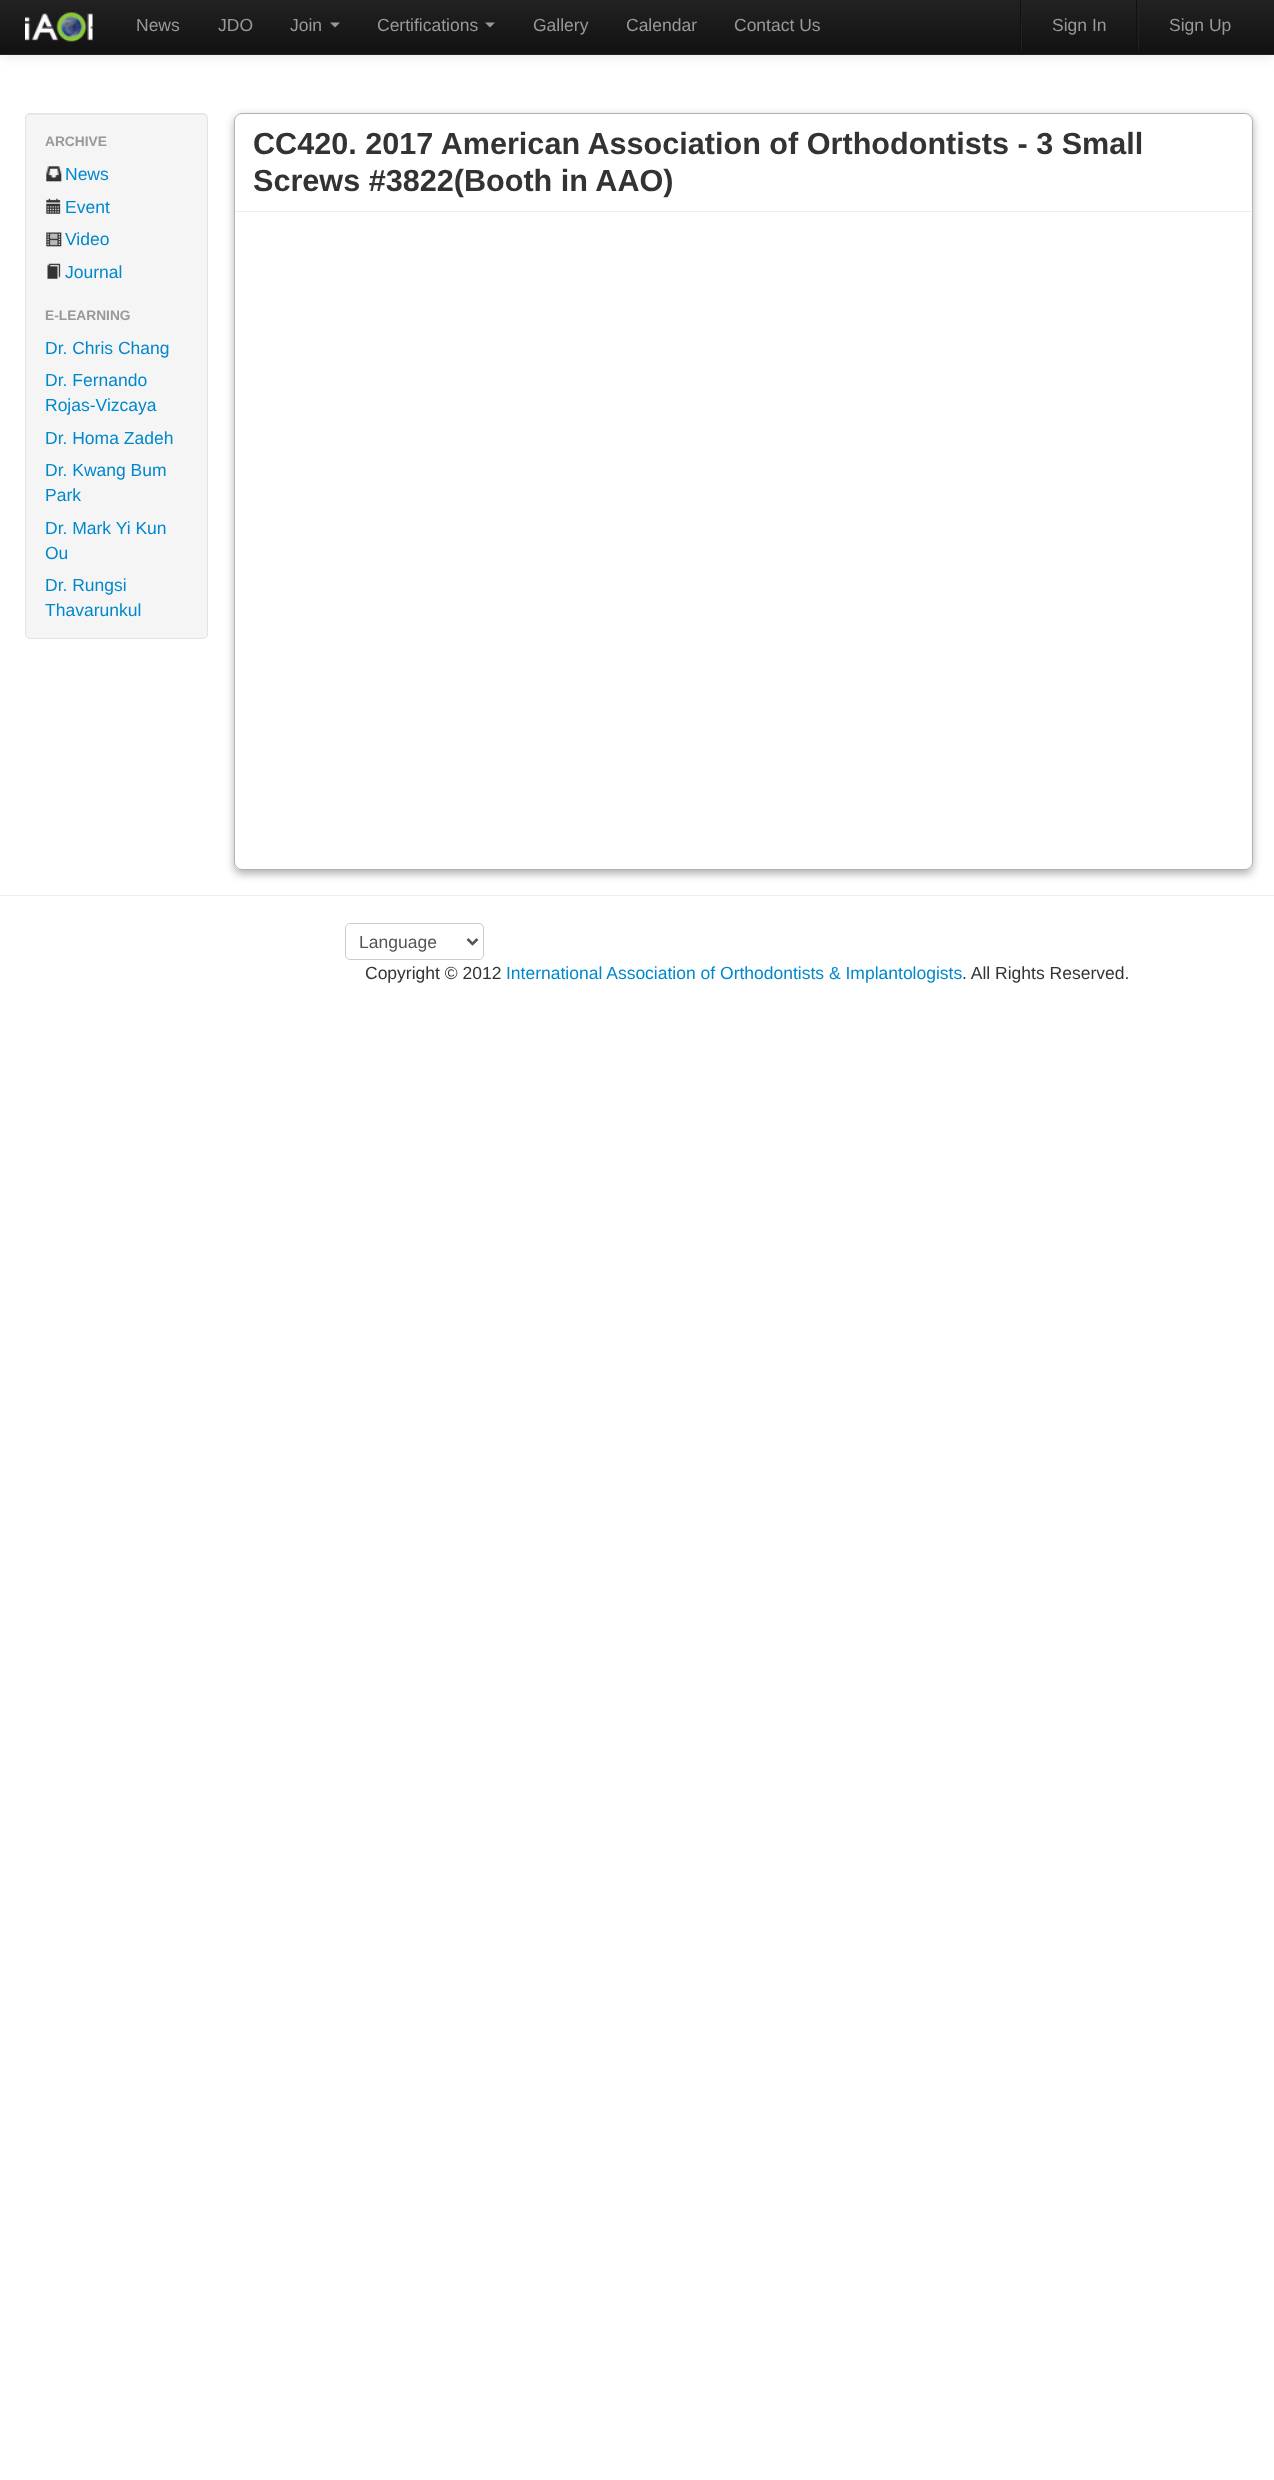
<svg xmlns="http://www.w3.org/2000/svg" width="1274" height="2480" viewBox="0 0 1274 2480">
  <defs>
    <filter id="blur1" x="-50%" y="-200%" width="200%" height="500%"><feGaussianBlur stdDeviation="6"/></filter>
    <linearGradient id="g1" gradientUnits="userSpaceOnUse" x1="638" y1="0" x2="638" y2="54"><stop offset="0" stop-color="#222222"/><stop offset="1" stop-color="#111111"/></linearGradient>
    <clipPath id="clip1"><path d="M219 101H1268V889H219ZM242 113H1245C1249.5 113 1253 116.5 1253 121V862C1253 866.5 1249.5 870 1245 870H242C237.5 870 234 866.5 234 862V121C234 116.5 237.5 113 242 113Z" clip-rule="evenodd"/></clipPath>
    <filter id="blur2" x="-50%" y="-200%" width="200%" height="500%"><feGaussianBlur stdDeviation="4.5"/></filter>
  </defs>
  <rect width="100%" height="100%" fill="#ffffff"/>
  <rect x="0" y="1" width="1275" height="55" fill="#000000" fill-opacity="0.1" filter="url(#blur1)"/>
  <rect x="0" y="0" width="1274" height="54" fill="url(#g1)"/>
  <rect x="0" y="54" width="1274" height="1" fill="#252525"/>
  <image x="25" y="12" width="68" height="30" href="img1.png"/>
  <text x="136" y="31" font-family="Liberation Sans" font-size="17.5" fill="#999999">News</text>
  <text x="218" y="31" font-family="Liberation Sans" font-size="17.5" fill="#999999">JDO</text>
  <text x="290" y="31" font-family="Liberation Sans" font-size="17.5" fill="#999999">Join</text>
  <path d="M330 22.5H340L335 27.5Z" fill="#999999"/>
  <text x="377" y="31" font-family="Liberation Sans" font-size="17.5" fill="#999999">Certifications</text>
  <path d="M485 22.5H495L490 27.5Z" fill="#999999"/>
  <text x="533" y="31" font-family="Liberation Sans" font-size="17.5" fill="#999999">Gallery</text>
  <text x="626" y="31" font-family="Liberation Sans" font-size="17.5" fill="#999999">Calendar</text>
  <text x="734" y="31" font-family="Liberation Sans" font-size="17.5" fill="#999999">Contact Us</text>
  <rect x="1021" y="0" width="1" height="50" fill="#222222"/>
  <rect x="1020" y="0" width="1" height="50" fill="#111111"/>
  <text x="1052" y="31" font-family="Liberation Sans" font-size="17.5" fill="#999999">Sign In</text>
  <rect x="1138" y="0" width="1" height="50" fill="#222222"/>
  <rect x="1136" y="0" width="1" height="50" fill="#111111"/>
  <text x="1169" y="31" font-family="Liberation Sans" font-size="17.5" fill="#999999">Sign Up</text>
  <rect x="25" y="113" width="183" height="526" rx="5" fill="#f5f5f5"/>
  <path d="M30 115H202C205 115 206 117 206 119V118C206 116 204 114 202 114H30C28 114 26 116 26 118V119C26 117 28 115 30 115Z" fill="#e9e9e9"/>
  <rect x="25.5" y="113.5" width="182" height="525" rx="4.5" fill="none" stroke="#e3e3e3"/>
  <text x="45" y="146" font-family="Liberation Sans" font-size="13.75" font-weight="bold" fill="#999999">ARCHIVE</text>
  <image x="46" y="166" width="16" height="16" href="img2.png"/>
  <text x="65" y="180" font-family="Liberation Sans" font-size="17.5" fill="#0088cc">News</text>
  <image x="46" y="198" width="15" height="16" href="img3.png"/>
  <text x="65" y="213" font-family="Liberation Sans" font-size="17.5" fill="#0088cc">Event</text>
  <image x="46" y="232" width="16" height="15" href="img4.png"/>
  <text x="65" y="245" font-family="Liberation Sans" font-size="17.5" fill="#0088cc">Video</text>
  <image x="47" y="263" width="14" height="16" href="img5.png"/>
  <text x="65" y="278" font-family="Liberation Sans" font-size="17.5" fill="#0088cc">Journal</text>
  <text x="45" y="320" font-family="Liberation Sans" font-size="13.75" font-weight="bold" fill="#999999">E-LEARNING</text>
  <text x="45" y="354" font-family="Liberation Sans" font-size="17.5" fill="#0088cc">Dr. Chris Chang</text>
  <text x="45" y="386" font-family="Liberation Sans" font-size="17.5" fill="#0088cc">Dr. Fernando</text>
  <text x="45" y="411" font-family="Liberation Sans" font-size="17.5" fill="#0088cc">Rojas-Vizcaya</text>
  <text x="45" y="444" font-family="Liberation Sans" font-size="17.5" fill="#0088cc">Dr. Homa Zadeh</text>
  <text x="45" y="476" font-family="Liberation Sans" font-size="17.5" fill="#0088cc">Dr. Kwang Bum</text>
  <text x="45" y="501" font-family="Liberation Sans" font-size="17.5" fill="#0088cc">Park</text>
  <text x="45" y="534" font-family="Liberation Sans" font-size="17.5" fill="#0088cc">Dr. Mark Yi Kun</text>
  <text x="45" y="559" font-family="Liberation Sans" font-size="17.5" fill="#0088cc">Ou</text>
  <text x="45" y="591" font-family="Liberation Sans" font-size="17.5" fill="#0088cc">Dr. Rungsi</text>
  <text x="45" y="616" font-family="Liberation Sans" font-size="17.5" fill="#0088cc">Thavarunkul</text>
  <g clip-path="url(#clip1)">
    <rect x="234" y="116" width="1019" height="758" rx="8" fill="#000000" fill-opacity="0.3" filter="url(#blur2)"/>
  </g>
  <rect x="234.5" y="113.5" width="1018" height="756" rx="7.5" fill="none" stroke="#000000" stroke-opacity="0.3"/>
  <rect x="235" y="211" width="1016" height="1" fill="#eeeeee"/>
  <text x="253" y="154" font-family="Liberation Sans" font-size="30.6" font-weight="bold" fill="#333333">CC420. 2017 American Association of Orthodontists - 3 Small</text>
  <text x="253" y="191" font-family="Liberation Sans" font-size="30.6" font-weight="bold" fill="#333333">Screws #3822(Booth in AAO)</text>
  <rect x="0" y="895" width="1274" height="1" fill="#eeeeee"/>
  <rect x="345.5" y="923.5" width="138" height="36" rx="4.5" fill="none" stroke="#cccccc"/>
  <path d="M467.5 939L472.5 944L477.5 939" fill="none" stroke="#555555" stroke-width="2.5"/>
  <text x="359" y="948" font-family="Liberation Sans" font-size="17.5" fill="#555555">Language</text>
  <text x="365" y="979" font-family="Liberation Sans" font-size="17.5" fill="#333333">Copyright © 2012</text>
  <text x="506" y="979" font-family="Liberation Sans" font-size="17.5" fill="#0088cc">International Association of Orthodontists &amp; Implantologists</text>
  <text x="962" y="979" font-family="Liberation Sans" font-size="17.5" fill="#333333">. All Rights Reserved.</text>
</svg>
